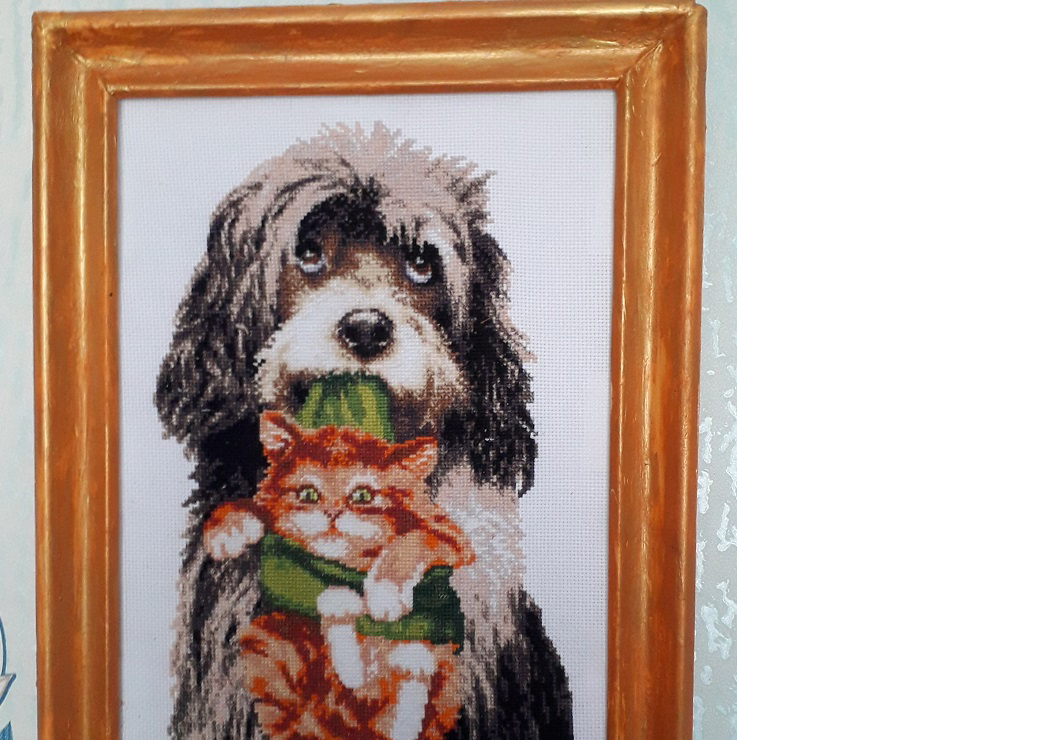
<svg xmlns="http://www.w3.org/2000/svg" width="1046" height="740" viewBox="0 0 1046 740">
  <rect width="100%" height="100%" fill="#ffffff"/>
  <image x="0" y="0" width="737" height="740" href="img1.png"/>
</svg>
